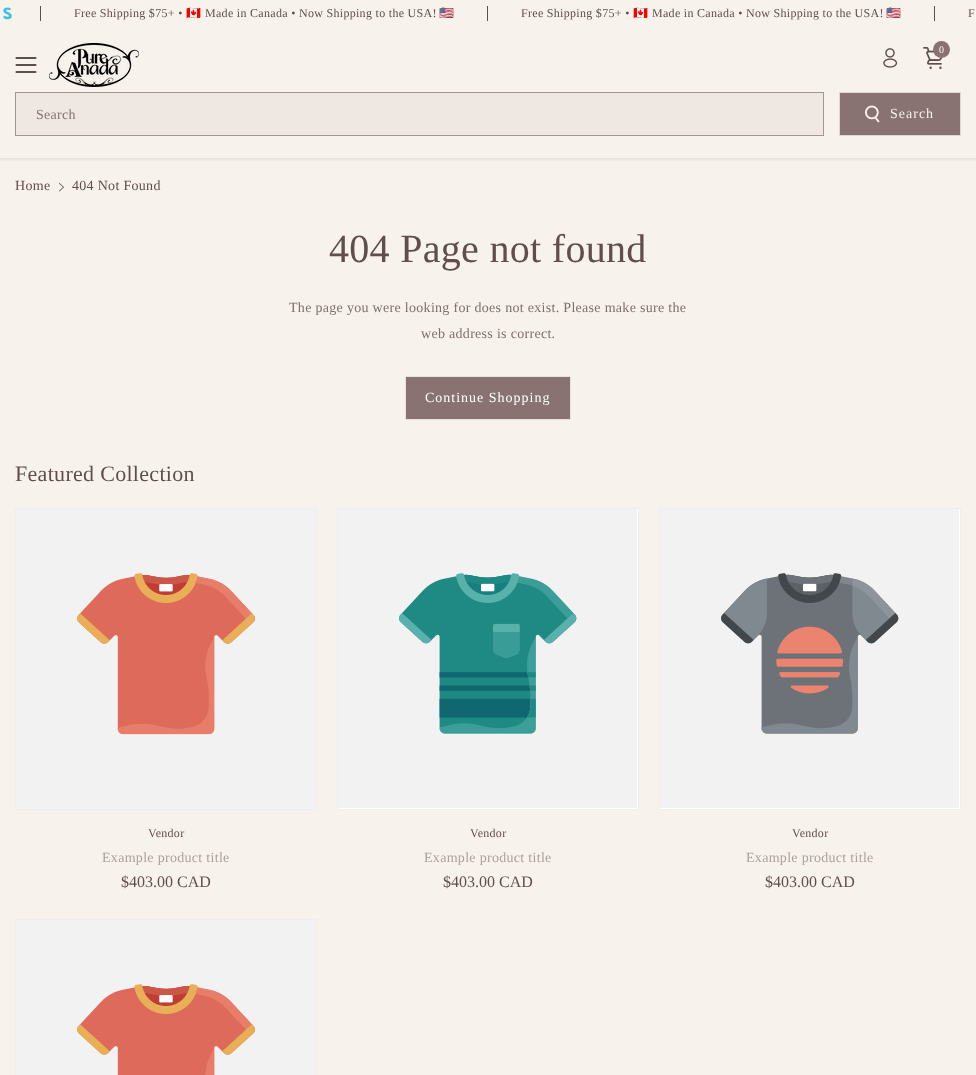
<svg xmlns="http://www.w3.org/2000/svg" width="976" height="1075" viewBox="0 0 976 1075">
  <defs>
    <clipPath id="clip1"><rect x="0" y="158" width="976" height="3"/></clipPath>
    <filter id="blur1" x="-50%" y="-200%" width="200%" height="500%"><feGaussianBlur stdDeviation="1"/></filter>
  </defs>
  <rect width="100%" height="100%" fill="#f8f2ec"/>
  <text x="0" y="17" font-family="Noto Color Emoji" font-size="12" letter-spacing="0.3" fill="#604e4e">🇸</text>
  <rect x="40" y="6" width="1" height="15" fill="#604e4e"/>
  <text x="74" y="17" font-family="Liberation Serif" font-size="12" letter-spacing="0.3" fill="#604e4e">Free Shipping $75+ •</text>
  <text x="186" y="17" font-family="Noto Color Emoji" font-size="12" letter-spacing="0.3" fill="#604e4e">🇨🇦</text>
  <text x="205" y="17" font-family="Liberation Serif" font-size="12" letter-spacing="0.3" fill="#604e4e">Made in Canada • Now Shipping to the USA!</text>
  <text x="439" y="17" font-family="Noto Color Emoji" font-size="12" letter-spacing="0.3" fill="#604e4e">🇺🇸</text>
  <rect x="487" y="6" width="1" height="15" fill="#604e4e"/>
  <text x="521" y="17" font-family="Liberation Serif" font-size="12" letter-spacing="0.3" fill="#604e4e">Free Shipping $75+ •</text>
  <text x="633" y="17" font-family="Noto Color Emoji" font-size="12" letter-spacing="0.3" fill="#604e4e">🇨🇦</text>
  <text x="652" y="17" font-family="Liberation Serif" font-size="12" letter-spacing="0.3" fill="#604e4e">Made in Canada • Now Shipping to the USA!</text>
  <text x="886" y="17" font-family="Noto Color Emoji" font-size="12" letter-spacing="0.3" fill="#604e4e">🇺🇸</text>
  <rect x="934" y="6" width="1" height="15" fill="#604e4e"/>
  <text x="968" y="17" font-family="Liberation Serif" font-size="12" letter-spacing="0.3" fill="#604e4e">F</text>
  <g clip-path="url(#clip1)">
    <rect x="0" y="29" width="976" height="131" fill="#604e4e" fill-opacity="0.1" filter="url(#blur1)"/>
  </g>
  <image x="49" y="43" width="90" height="44" href="img1.png"/>
  <image x="883" y="48" width="15" height="20" href="img2.png"/>
  <image x="923" y="47" width="20" height="22" href="img3.png"/>
  <circle cx="941.5" cy="49.5" r="8.5" fill="#897272"/>
  <text x="939" y="53" font-family="Liberation Serif" font-size="10" letter-spacing="0.3" fill="#f8f2ec">0</text>
  <path d="M16.5 72H35.5M16.5 65H35.5M16.5 58H35.5" fill="none" stroke="#604e4e" stroke-width="2.1" stroke-linecap="round" stroke-linejoin="round"/>
  <rect x="16" y="93" width="807" height="42" fill="#efe8e2"/>
  <rect x="15.5" y="92.5" width="808" height="43" fill="none" stroke="#a29693"/>
  <text x="36" y="119" font-family="Liberation Serif" font-size="14" letter-spacing="0.3" fill="#847573">Search</text>
  <rect x="840" y="93" width="120" height="42" fill="#897272"/>
  <image x="865" y="105" width="15" height="18" href="img4.png"/>
  <rect x="839.5" y="92.5" width="121" height="43" fill="none" stroke="#e2d8d3"/>
  <text x="890" y="118" font-family="Liberation Serif" font-size="14" letter-spacing="1" fill="#f8f2ec">Search</text>
  <text x="15" y="190" font-family="Liberation Serif" font-size="14" letter-spacing="0.3" fill="#604e4e">Home</text>
  <image x="59" y="182" width="5" height="10" href="img5.png"/>
  <text x="72" y="190" font-family="Liberation Serif" font-size="14" letter-spacing="0.3" fill="#604e4e">404 Not Found</text>
  <text x="329" y="262" font-family="Liberation Serif" font-size="40" letter-spacing="0.3" fill="#604e4e">404 Page not found</text>
  <text x="289" y="312" font-family="Liberation Serif" font-size="14" letter-spacing="0.3" fill="#7e6f6e">The page you were looking for does not exist. Please make sure the</text>
  <text x="421" y="338" font-family="Liberation Serif" font-size="14" letter-spacing="0.3" fill="#7e6f6e">web address is correct.</text>
  <rect x="406" y="377" width="164" height="42" fill="#897272"/>
  <rect x="405.5" y="376.5" width="165" height="43" fill="none" stroke="#e7e3e3"/>
  <text x="425" y="402" font-family="Liberation Serif" font-size="14" letter-spacing="1" fill="#ffffff">Continue Shopping</text>
  <text x="15" y="481" font-family="Liberation Serif" font-size="22" letter-spacing="0.3" fill="#604e4e">Featured Collection</text>
  <rect x="15.5" y="508.5" width="301" height="301" fill="none" stroke="#efeded"/>
  <image x="16" y="509" width="300" height="300" href="img6.png"/>
  <text x="148" y="837" font-family="Liberation Serif" font-size="12" letter-spacing="0.3" fill="#604e4e">Vendor</text>
  <text x="102" y="862" font-family="Liberation Serif" font-size="14" letter-spacing="0.3" fill="#aca09d">Example product title</text>
  <text x="121" y="887" font-family="Liberation Serif" font-size="16" fill="#604e4e">$403.00 CAD</text>
  <rect x="337.5" y="508.5" width="301" height="301" fill="#ffffff" stroke="#efeded"/>
  <image x="338" y="509" width="299" height="299" href="img7.png"/>
  <text x="470" y="837" font-family="Liberation Serif" font-size="12" letter-spacing="0.3" fill="#604e4e">Vendor</text>
  <text x="424" y="862" font-family="Liberation Serif" font-size="14" letter-spacing="0.3" fill="#aca09d">Example product title</text>
  <text x="443" y="887" font-family="Liberation Serif" font-size="16" fill="#604e4e">$403.00 CAD</text>
  <rect x="659.5" y="508.5" width="301" height="301" fill="#ffffff" stroke="#efeded"/>
  <image x="660" y="509" width="299" height="299" href="img8.png"/>
  <text x="792" y="837" font-family="Liberation Serif" font-size="12" letter-spacing="0.3" fill="#604e4e">Vendor</text>
  <text x="746" y="862" font-family="Liberation Serif" font-size="14" letter-spacing="0.3" fill="#aca09d">Example product title</text>
  <text x="765" y="887" font-family="Liberation Serif" font-size="16" fill="#604e4e">$403.00 CAD</text>
  <rect x="15.5" y="919.5" width="301" height="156" fill="none" stroke="#efeded"/>
  <image x="16" y="920" width="300" height="155" href="img9.png"/>
</svg>
